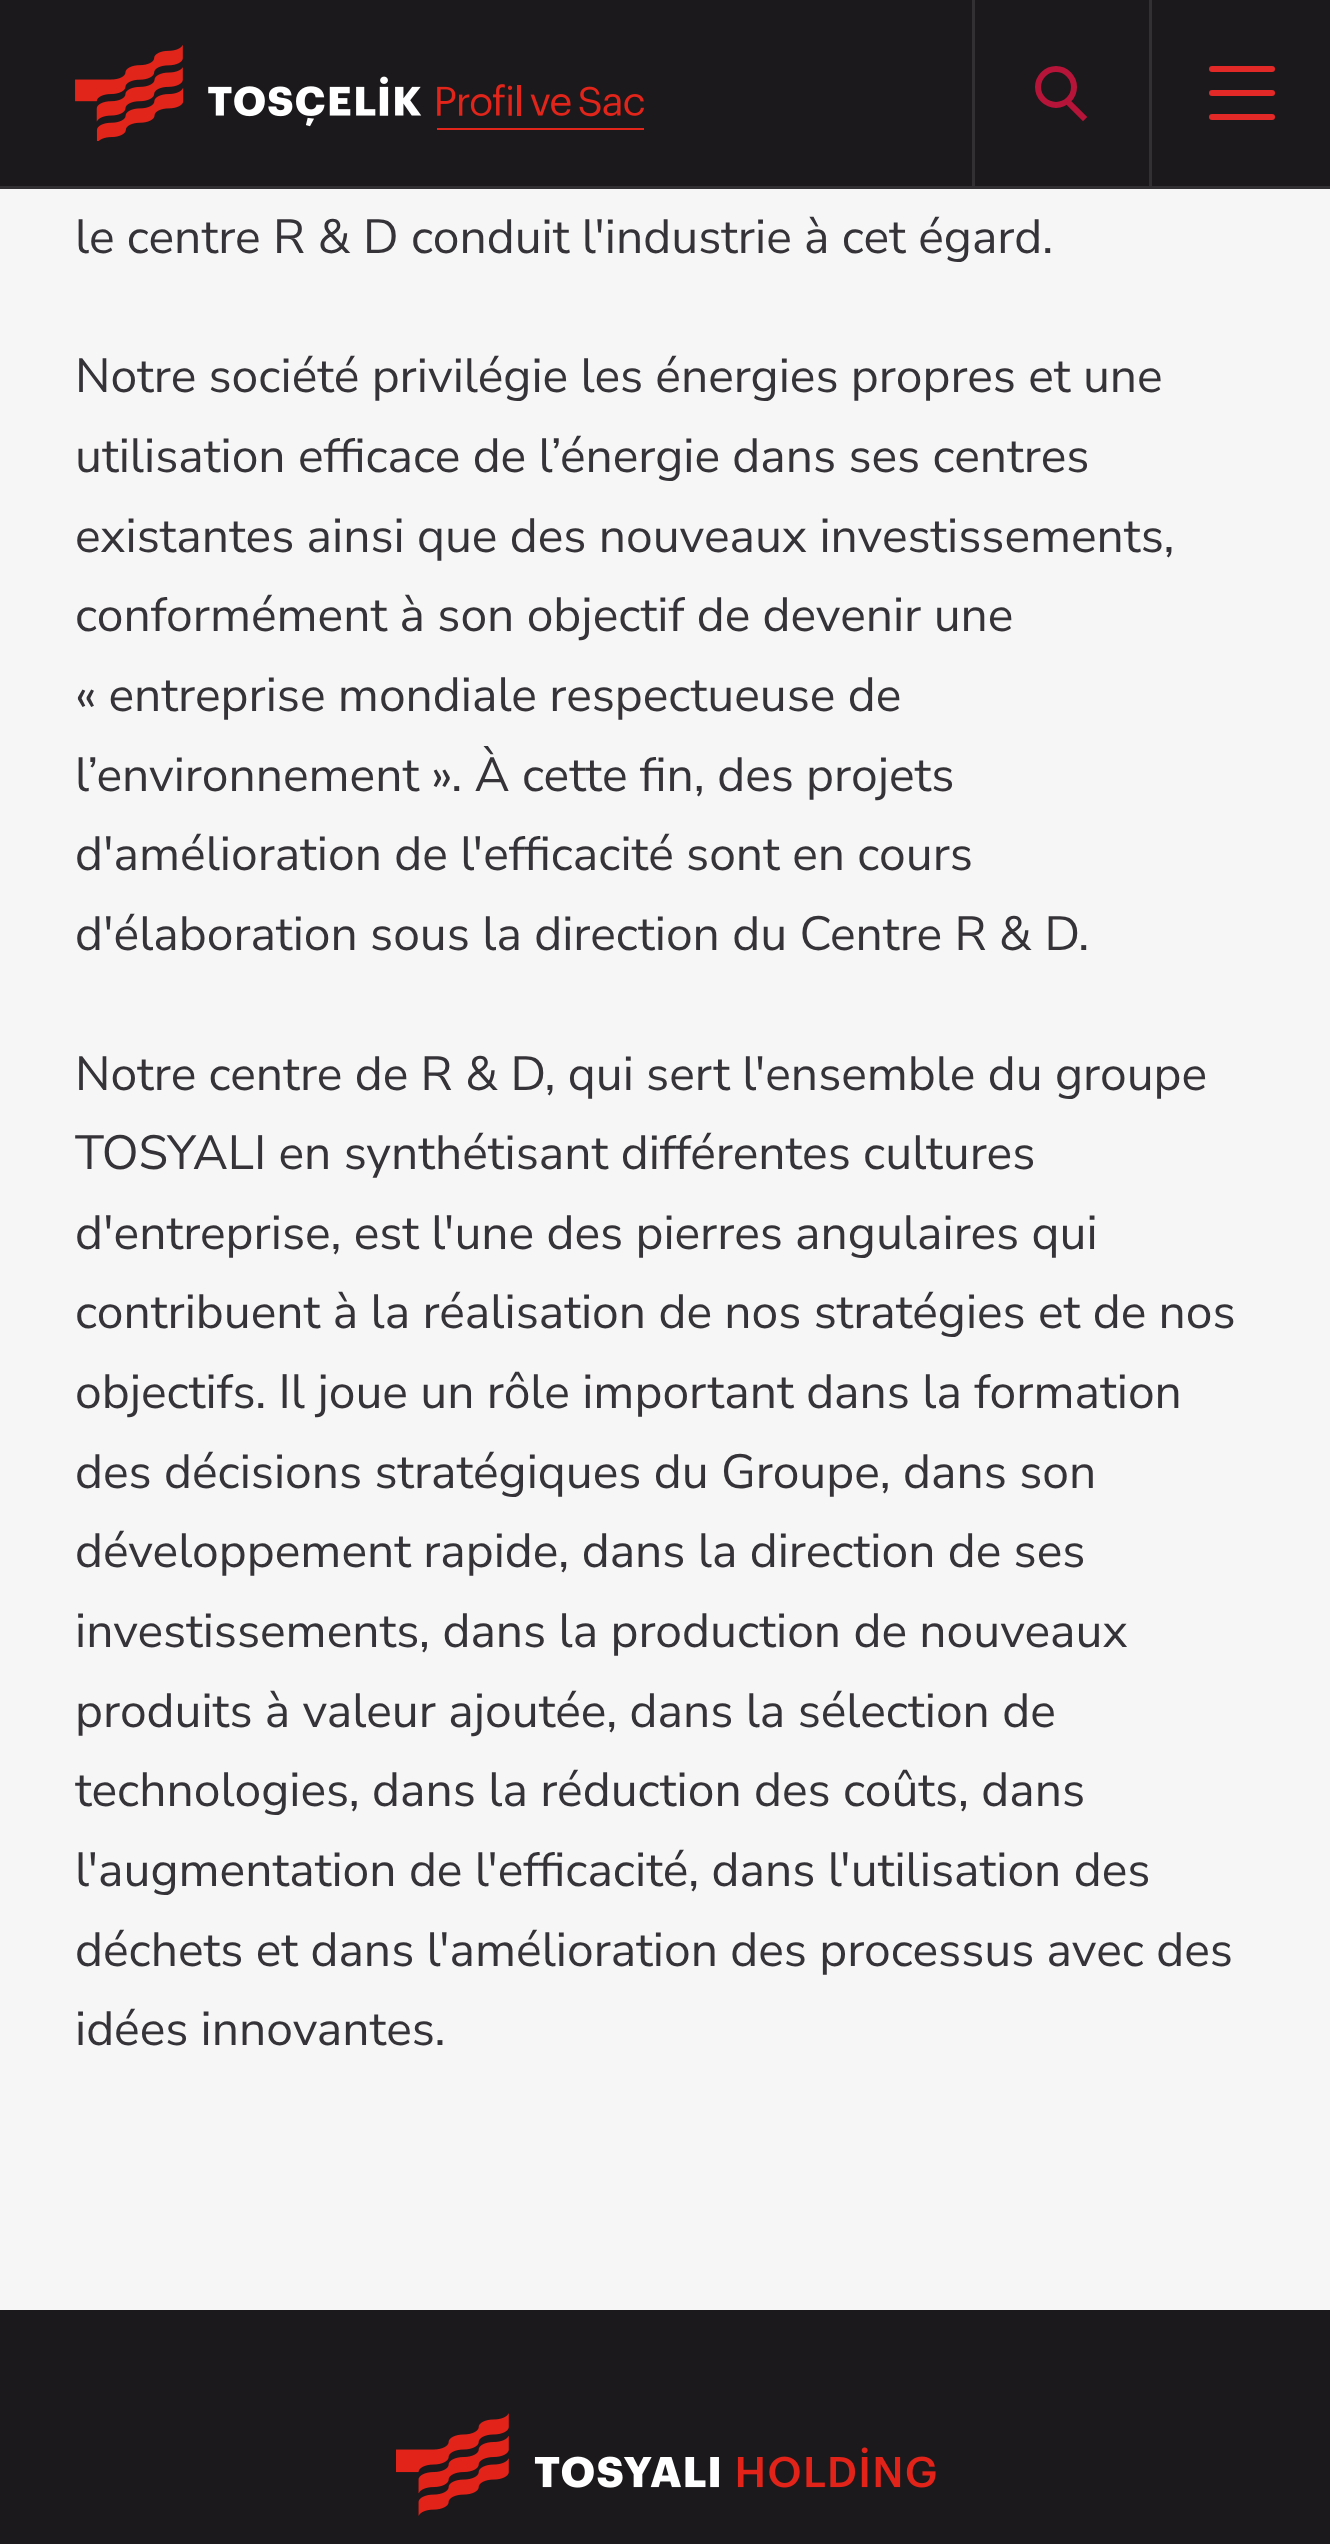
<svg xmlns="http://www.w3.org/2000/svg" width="1330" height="2544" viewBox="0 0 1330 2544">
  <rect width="100%" height="100%" fill="#f6f6f6"/>
  <rect x="0" y="186" width="1330" height="3" fill="#323033"/>
  <rect x="0" y="0" width="1330" height="186" fill="#1b191c"/>
  <image x="75" y="45" width="569" height="96" href="img1.png"/>
  <rect x="1149" y="0" width="3" height="186" fill="#323033"/>
  <rect x="972" y="0" width="3" height="186" fill="#323033"/>
  <circle cx="1056" cy="87" r="18" fill="none" stroke="#b61539" stroke-width="6"/>
  <path d="M1069.5 103.5L1083 117" fill="none" stroke="#b61539" stroke-width="6" stroke-linecap="square"/>
  <rect x="1209" y="66" width="66" height="6" rx="3" fill="#e22927"/>
  <rect x="1209" y="90" width="66" height="6" rx="3" fill="#e22927"/>
  <rect x="1209" y="114" width="66" height="6" rx="3" fill="#e22927"/>
  <text x="75" y="253" font-family="Nunito Sans" font-size="48" fill="#363338">le centre R &amp; D conduit l'industrie à cet égard.</text>
  <text x="75" y="392" font-family="Nunito Sans" font-size="48" fill="#363338">Notre société privilégie les énergies propres et une</text>
  <text x="75" y="472" font-family="Nunito Sans" font-size="48" fill="#363338">utilisation efficace de l’énergie dans ses centres</text>
  <text x="75" y="552" font-family="Nunito Sans" font-size="48" fill="#363338">existantes ainsi que des nouveaux investissements,</text>
  <text x="75" y="631" font-family="Nunito Sans" font-size="48" fill="#363338">conformément à son objectif de devenir une</text>
  <text x="75" y="711" font-family="Nunito Sans" font-size="48" fill="#363338">« entreprise mondiale respectueuse de</text>
  <text x="75" y="791" font-family="Nunito Sans" font-size="48" fill="#363338">l’environnement ». À cette fin, des projets</text>
  <text x="75" y="870" font-family="Nunito Sans" font-size="48" fill="#363338">d'amélioration de l'efficacité sont en cours</text>
  <text x="75" y="950" font-family="Nunito Sans" font-size="48" fill="#363338">d'élaboration sous la direction du Centre R &amp; D.</text>
  <text x="75" y="1090" font-family="Nunito Sans" font-size="48" fill="#363338">Notre centre de R &amp; D, qui sert l'ensemble du groupe</text>
  <text x="75" y="1169" font-family="Nunito Sans" font-size="48" fill="#363338">TOSYALI en synthétisant différentes cultures</text>
  <text x="75" y="1249" font-family="Nunito Sans" font-size="48" fill="#363338">d'entreprise, est l'une des pierres angulaires qui</text>
  <text x="75" y="1328" font-family="Nunito Sans" font-size="48" fill="#363338">contribuent à la réalisation de nos stratégies et de nos</text>
  <text x="75" y="1408" font-family="Nunito Sans" font-size="48" fill="#363338">objectifs. Il joue un rôle important dans la formation</text>
  <text x="75" y="1488" font-family="Nunito Sans" font-size="48" fill="#363338">des décisions stratégiques du Groupe, dans son</text>
  <text x="75" y="1567" font-family="Nunito Sans" font-size="48" fill="#363338">développement rapide, dans la direction de ses</text>
  <text x="75" y="1647" font-family="Nunito Sans" font-size="48" fill="#363338">investissements, dans la production de nouveaux</text>
  <text x="75" y="1727" font-family="Nunito Sans" font-size="48" fill="#363338">produits à valeur ajoutée, dans la sélection de</text>
  <text x="75" y="1806" font-family="Nunito Sans" font-size="48" fill="#363338">technologies, dans la réduction des coûts, dans</text>
  <text x="75" y="1886" font-family="Nunito Sans" font-size="48" fill="#363338">l'augmentation de l'efficacité, dans l'utilisation des</text>
  <text x="75" y="1966" font-family="Nunito Sans" font-size="48" fill="#363338">déchets et dans l'amélioration des processus avec des</text>
  <text x="75" y="2045" font-family="Nunito Sans" font-size="48" fill="#363338">idées innovantes.</text>
  <rect x="0" y="2310" width="1330" height="234" fill="#1b191c"/>
  <image x="396" y="2413" width="540" height="103" href="img2.png"/>
</svg>
